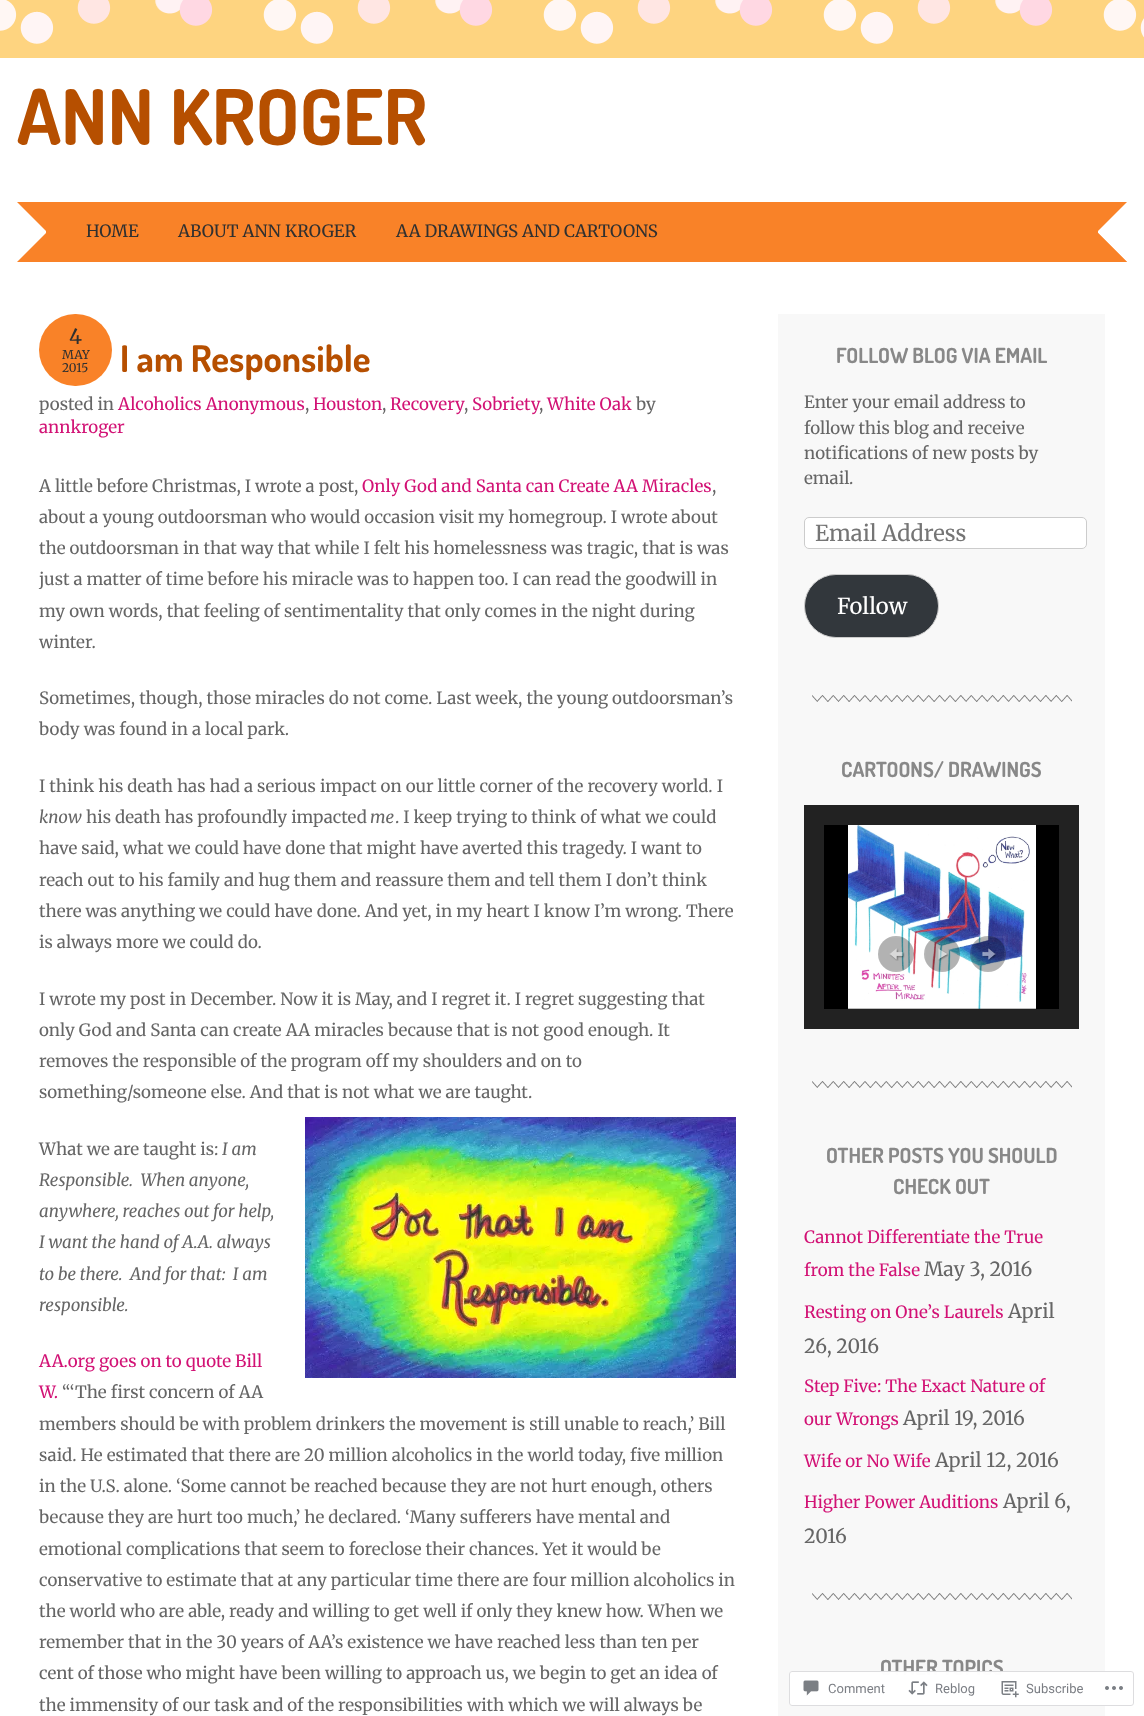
<svg xmlns="http://www.w3.org/2000/svg" width="1144" height="1716" viewBox="0 0 1144 1716">
  <rect width="100%" height="100%" fill="#fed480"/>
  <image x="0" y="0" width="1144" height="44" href="img1.png"/>
  <rect x="0" y="58" width="1144" height="1658" fill="#ffffff"/>
  <text x="17" y="145" font-family="Dosis" font-size="76.75" font-weight="bold" fill="#b64f00">ANN KROGER</text>
  <rect x="17" y="202" width="1110" height="60" fill="#f98228"/>
  <path d="M17 262V202L46 231V233Z" fill="#ffffff"/>
  <text x="86" y="237" font-family="Merriweather" font-size="16.9" fill="#303030">HOME</text>
  <text x="178" y="237" font-family="Merriweather" font-size="16.9" fill="#303030">ABOUT ANN KROGER</text>
  <text x="396" y="237" font-family="Merriweather" font-size="16.9" fill="#303030">AA DRAWINGS AND CARTOONS</text>
  <path d="M1127 202V262L1098 233V231Z" fill="#ffffff"/>
  <path d="M1127 262H1067L1098 233Z" fill="#f98228"/>
  <rect x="39" y="314" width="73" height="72" rx="36" fill="#f98228"/>
  <text x="69" y="344" font-family="Merriweather" font-size="21" fill="#303030">4</text>
  <text x="62" y="359" font-family="Merriweather" font-size="12" fill="#303030">MAY</text>
  <text x="62" y="372" font-family="Merriweather" font-size="12" fill="#303030">2015</text>
  <text x="120" y="372" font-family="Dosis" font-size="36.75" font-weight="bold" fill="#b64f00">I am Responsible</text>
  <text x="39" y="410" font-family="Merriweather" font-size="16.9" fill="#666666">posted in</text>
  <text x="118" y="410" font-family="Merriweather" font-size="16.9" fill="#d21275">Alcoholics Anonymous</text>
  <text x="305" y="410" font-family="Merriweather" font-size="16.9" fill="#666666">,</text>
  <text x="313" y="410" font-family="Merriweather" font-size="16.9" fill="#d21275">Houston</text>
  <text x="382" y="410" font-family="Merriweather" font-size="16.9" fill="#666666">,</text>
  <text x="390" y="410" font-family="Merriweather" font-size="16.9" fill="#d21275">Recovery</text>
  <text x="472" y="410" font-family="Merriweather" font-size="16.9" fill="#d21275">Sobriety</text>
  <text x="547" y="410" font-family="Merriweather" font-size="16.9" fill="#d21275">White Oak</text>
  <text x="636" y="410" font-family="Merriweather" font-size="16.9" fill="#666666">by</text>
  <text x="464" y="410" font-family="Merriweather" font-size="16.9" fill="#666666">,</text>
  <text x="539" y="410" font-family="Merriweather" font-size="16.9" fill="#666666">,</text>
  <text x="39" y="433" font-family="Merriweather" font-size="16.9" fill="#d21275">annkroger</text>
  <text x="39" y="492" font-family="Merriweather" font-size="16.9" fill="#666666">A little before Christmas, I wrote a post,</text>
  <text x="362" y="492" font-family="Merriweather" font-size="16.9" fill="#d21275">Only God and Santa can Create AA Miracles</text>
  <text x="712" y="492" font-family="Merriweather" font-size="16.9" fill="#666666">,</text>
  <text x="39" y="523" font-family="Merriweather" font-size="16.9" fill="#666666">about a young outdoorsman who would occasion visit my homegroup. I wrote about</text>
  <text x="39" y="554" font-family="Merriweather" font-size="16.9" fill="#666666">the outdoorsman in that way that while I felt his homelessness was tragic, that is was</text>
  <text x="39" y="585" font-family="Merriweather" font-size="16.9" fill="#666666">just a matter of time before his miracle was to happen too. I can read the goodwill in</text>
  <text x="39" y="617" font-family="Merriweather" font-size="16.9" fill="#666666">my own words, that feeling of sentimentality that only comes in the night during</text>
  <text x="39" y="648" font-family="Merriweather" font-size="16.9" fill="#666666">winter.</text>
  <text x="39" y="704" font-family="Merriweather" font-size="16.9" fill="#666666">Sometimes, though, those miracles do not come. Last week, the young outdoorsman’s</text>
  <text x="39" y="735" font-family="Merriweather" font-size="16.9" fill="#666666">body was found in a local park.</text>
  <text x="39" y="792" font-family="Merriweather" font-size="16.9" fill="#666666">I think his death has had a serious impact on our little corner of the recovery world. I</text>
  <text x="39" y="823" font-family="Merriweather" font-size="16.9" font-style="italic" fill="#666666">know</text>
  <text x="86" y="823" font-family="Merriweather" font-size="16.9" fill="#666666">his death has profoundly impacted</text>
  <text x="370" y="823" font-family="Merriweather" font-size="16.9" font-style="italic" fill="#666666">me</text>
  <text x="395" y="823" font-family="Merriweather" font-size="16.9" fill="#666666">. I keep trying to think of what we could</text>
  <text x="39" y="854" font-family="Merriweather" font-size="16.9" fill="#666666">have said, what we could have done that might have averted this tragedy. I want to</text>
  <text x="39" y="886" font-family="Merriweather" font-size="16.9" fill="#666666">reach out to his family and hug them and reassure them and tell them I don’t think</text>
  <text x="39" y="917" font-family="Merriweather" font-size="16.9" fill="#666666">there was anything we could have done. And yet, in my heart I know I’m wrong. There</text>
  <text x="39" y="948" font-family="Merriweather" font-size="16.9" fill="#666666">is always more we could do.</text>
  <text x="39" y="1005" font-family="Merriweather" font-size="16.9" fill="#666666">I wrote my post in December. Now it is May, and I regret it. I regret suggesting that</text>
  <text x="39" y="1036" font-family="Merriweather" font-size="16.9" fill="#666666">only God and Santa can create AA miracles because that is not good enough. It</text>
  <text x="39" y="1067" font-family="Merriweather" font-size="16.9" fill="#666666">removes the responsible of the program off my shoulders and on to</text>
  <text x="39" y="1098" font-family="Merriweather" font-size="16.9" fill="#666666">something/someone else. And that is not what we are taught.</text>
  <image x="305" y="1117" width="431" height="261" href="img2.png"/>
  <text x="39" y="1155" font-family="Merriweather" font-size="16.9" fill="#666666">What we are taught is:</text>
  <text x="222" y="1155" font-family="Merriweather" font-size="16.9" font-style="italic" fill="#666666">I am</text>
  <text x="39" y="1186" font-family="Merriweather" font-size="16.9" font-style="italic" fill="#666666" xml:space="preserve">Responsible.  When anyone,</text>
  <text x="39" y="1217" font-family="Merriweather" font-size="16.9" font-style="italic" fill="#666666">anywhere, reaches out for help,</text>
  <text x="39" y="1248" font-family="Merriweather" font-size="16.9" font-style="italic" fill="#666666">I want the hand of A.A. always</text>
  <text x="39" y="1280" font-family="Merriweather" font-size="16.9" font-style="italic" fill="#666666" xml:space="preserve">to be there.  And for that:  I am</text>
  <text x="39" y="1311" font-family="Merriweather" font-size="16.9" font-style="italic" fill="#666666">responsible.</text>
  <text x="39" y="1367" font-family="Merriweather" font-size="16.9" fill="#d21275">AA.org goes on to quote Bill</text>
  <text x="39" y="1398" font-family="Merriweather" font-size="16.9" fill="#d21275">W.</text>
  <text x="62" y="1398" font-family="Merriweather" font-size="16.9" fill="#666666">“‘The first concern of AA</text>
  <text x="39" y="1430" font-family="Merriweather" font-size="16.9" fill="#666666">members should be with problem drinkers the movement is still unable to reach,’ Bill</text>
  <text x="39" y="1461" font-family="Merriweather" font-size="16.9" fill="#666666">said. He estimated that there are 20 million alcoholics in the world today, five million</text>
  <text x="39" y="1492" font-family="Merriweather" font-size="16.9" fill="#666666">in the U.S. alone. ‘Some cannot be reached because they are not hurt enough, others</text>
  <text x="39" y="1523" font-family="Merriweather" font-size="16.9" fill="#666666">because they are hurt too much,’ he declared. ‘Many sufferers have mental and</text>
  <text x="39" y="1555" font-family="Merriweather" font-size="16.9" fill="#666666">emotional complications that seem to foreclose their chances. Yet it would be</text>
  <text x="39" y="1586" font-family="Merriweather" font-size="16.9" fill="#666666">conservative to estimate that at any particular time there are four million alcoholics in</text>
  <text x="39" y="1617" font-family="Merriweather" font-size="16.9" fill="#666666">the world who are able, ready and willing to get well if only they knew how. When we</text>
  <text x="39" y="1648" font-family="Merriweather" font-size="16.9" fill="#666666">remember that in the 30 years of AA’s existence we have reached less than ten per</text>
  <text x="39" y="1679" font-family="Merriweather" font-size="16.9" fill="#666666">cent of those who might have been willing to approach us, we begin to get an idea of</text>
  <text x="39" y="1711" font-family="Merriweather" font-size="16.9" fill="#666666">the immensity of our task and of the responsibilities with which we will always be</text>
  <rect x="778" y="314" width="327" height="1402" fill="#f8f8f8"/>
  <image x="812" y="695" width="260" height="7" href="img3.png"/>
  <text x="836" y="363" font-family="Dosis" font-size="20.75" font-weight="bold" fill="#888888">FOLLOW BLOG VIA EMAIL</text>
  <text x="804" y="408" font-family="Merriweather" font-size="16.9" fill="#666666">Enter your email address to</text>
  <text x="804" y="434" font-family="Merriweather" font-size="16.9" fill="#666666">follow this blog and receive</text>
  <text x="804" y="459" font-family="Merriweather" font-size="16.9" fill="#666666">notifications of new posts by</text>
  <text x="804" y="484" font-family="Merriweather" font-size="16.9" fill="#666666">email.</text>
  <rect x="804.5" y="517.5" width="282" height="31" rx="4.5" fill="#ffffff" stroke="#cccccc"/>
  <text x="815" y="541" font-family="Merriweather" font-size="22" fill="#757575">Email Address</text>
  <rect x="804.5" y="574.5" width="134" height="63" rx="31.5" fill="#32373c" stroke="#cccccc"/>
  <text x="837" y="614" font-family="Merriweather" font-size="22" fill="#ffffff">Follow</text>
  <image x="812" y="1081" width="260" height="7" href="img3.png"/>
  <text x="841" y="777" font-family="Dosis" font-size="20.75" font-weight="bold" fill="#888888">CARTOONS/ DRAWINGS</text>
  <rect x="814" y="815" width="255" height="204" fill="none" stroke="#222222" stroke-width="20"/>
  <rect x="824" y="825" width="235" height="184" fill="#000000"/>
  <image x="848" y="825" width="188" height="184" href="img4.png"/>
  <circle cx="896" cy="954" r="18" fill="#000000" fill-opacity="0.3"/>
  <image x="889" y="948" width="16" height="13" href="img5.png"/>
  <rect x="879" y="937" width="34" height="34" fill="none" stroke="#ffffff" stroke-opacity="0.05" stroke-width="2"/>
  <circle cx="942" cy="954" r="18" fill="#000000" fill-opacity="0.3"/>
  <image x="938" y="948" width="11" height="13" href="img6.png"/>
  <rect x="925" y="937" width="34" height="34" fill="none" stroke="#ffffff" stroke-opacity="0.05" stroke-width="2"/>
  <circle cx="988" cy="954" r="18" fill="#000000" fill-opacity="0.3"/>
  <image x="982" y="948" width="15" height="13" href="img7.png"/>
  <rect x="971" y="937" width="34" height="34" fill="none" stroke="#ffffff" stroke-opacity="0.05" stroke-width="2"/>
  <image x="812" y="1593" width="260" height="7" href="img3.png"/>
  <text x="826" y="1163" font-family="Dosis" font-size="20.75" font-weight="bold" fill="#888888">OTHER POSTS YOU SHOULD</text>
  <text x="893" y="1194" font-family="Dosis" font-size="20.75" font-weight="bold" fill="#888888">CHECK OUT</text>
  <text x="804" y="1243" font-family="Merriweather" font-size="16.9" fill="#d21275">Cannot Differentiate the True</text>
  <text x="804" y="1276" font-family="Merriweather" font-size="16.9" fill="#d21275">from the False</text>
  <text x="924" y="1276" font-family="Merriweather" font-size="19.5" fill="#666666">May 3, 2016</text>
  <text x="804" y="1318" font-family="Merriweather" font-size="16.9" fill="#d21275">Resting on One’s Laurels</text>
  <text x="1008" y="1318" font-family="Merriweather" font-size="19.5" fill="#666666">April</text>
  <text x="804" y="1353" font-family="Merriweather" font-size="19.5" fill="#666666">26, 2016</text>
  <text x="804" y="1392" font-family="Merriweather" font-size="16.9" fill="#d21275">Step Five: The Exact Nature of</text>
  <text x="804" y="1425" font-family="Merriweather" font-size="16.9" fill="#d21275">our Wrongs</text>
  <text x="903" y="1425" font-family="Merriweather" font-size="19.5" fill="#666666">April 19, 2016</text>
  <text x="804" y="1467" font-family="Merriweather" font-size="16.9" fill="#d21275">Wife or No Wife</text>
  <text x="935" y="1467" font-family="Merriweather" font-size="19.5" fill="#666666">April 12, 2016</text>
  <text x="804" y="1508" font-family="Merriweather" font-size="16.9" fill="#d21275">Higher Power Auditions</text>
  <text x="1003" y="1508" font-family="Merriweather" font-size="19.5" fill="#666666">April 6,</text>
  <text x="804" y="1543" font-family="Merriweather" font-size="19.5" fill="#666666">2016</text>
  <text x="880" y="1675" font-family="Dosis" font-size="20.75" font-weight="bold" fill="#888888">OTHER TOPICS</text>
  <rect x="789" y="1671" width="345" height="35" rx="3" fill="#ffffff" fill-opacity="0.98"/>
  <rect x="789.5" y="1671.5" width="344" height="34" rx="2.5" fill="none" stroke="#dcdcde" stroke-opacity="0.98"/>
  <image x="803" y="1680" width="16" height="16" href="img8.png"/>
  <text x="828" y="1693" font-family="Roboto" font-size="13" fill="#7b7e84">Comment</text>
  <image x="908" y="1681" width="20" height="14" href="img9.png"/>
  <text x="935" y="1693" font-family="Roboto" font-size="13" fill="#7b7e84">Reblog</text>
  <image x="1001" y="1681" width="18" height="17" href="img10.png"/>
  <text x="1026" y="1693" font-family="Roboto" font-size="13" fill="#7b7e84">Subscribe</text>
  <image x="1105" y="1686" width="18" height="4" href="img11.png"/>
</svg>
